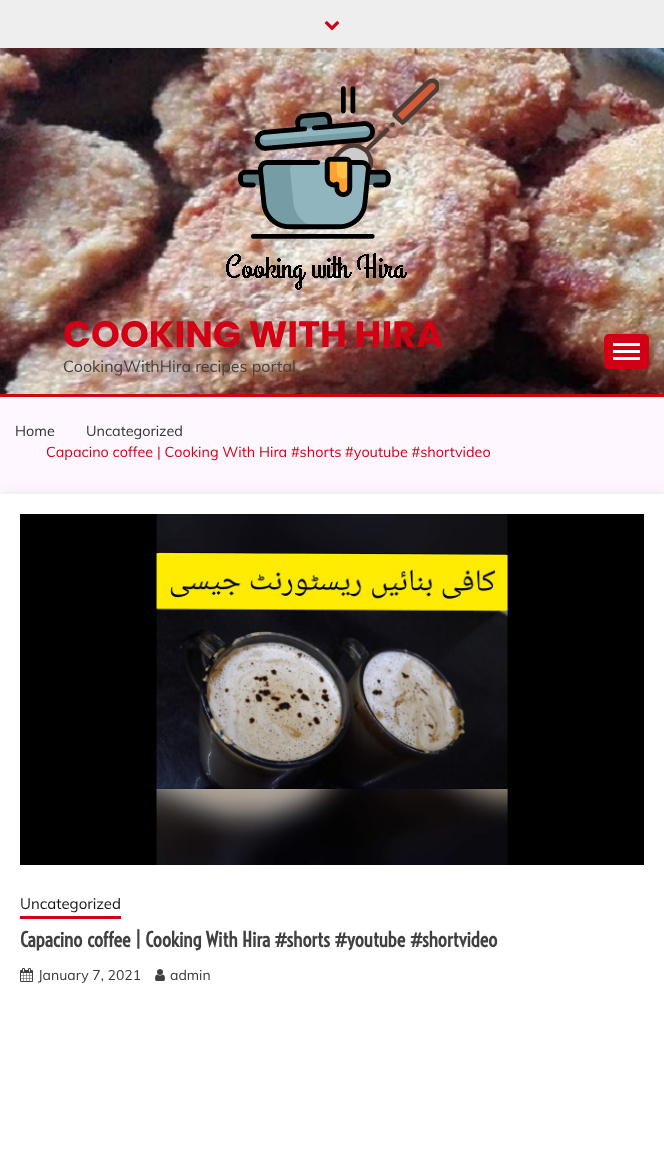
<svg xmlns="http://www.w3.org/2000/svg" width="664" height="1151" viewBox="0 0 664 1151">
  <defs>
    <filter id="blur1" x="-50%" y="-200%" width="200%" height="500%"><feGaussianBlur stdDeviation="10"/></filter>
  </defs>
  <rect width="100%" height="100%" fill="#fef7ff"/>
  <rect x="0" y="0" width="664" height="48" fill="#eeeeee"/>
  <image x="324" y="21" width="16" height="10" href="img1.png"/>
  <image x="0" y="48" width="664" height="346" href="img2.png"/>
  <image x="226" y="78" width="213" height="212" href="img3.png"/>
  <text x="63" y="347" font-family="Poppins" font-size="36.75" font-weight="bold" fill="#d10014">COOKING WITH HIRA</text>
  <text x="63" y="372" font-family="Muli" font-size="16" fill="#404040">CookingWithHira recipes portal</text>
  <rect x="604" y="334" width="45" height="35" rx="5" fill="#d10014"/>
  <rect x="613" y="343" width="27" height="3" fill="#ffffff"/>
  <rect x="613" y="350" width="27" height="3" fill="#ffffff"/>
  <rect x="613" y="357" width="27" height="3" fill="#ffffff"/>
  <rect x="0" y="394" width="664" height="3" fill="#d10014"/>
  <text x="15" y="436" font-family="Muli" font-size="14.4" fill="#333333">Home</text>
  <text x="86" y="436" font-family="Muli" font-size="14.4" fill="#333333">Uncategorized</text>
  <text x="46" y="457" font-family="Muli" font-size="14.4" fill="#d10014">Capacino coffee | Cooking With Hira #shorts #youtube #shortvideo</text>
  <rect x="2" y="499" width="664" height="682" fill="#000000" fill-opacity="0.14" filter="url(#blur1)"/>
  <rect x="0" y="494" width="664" height="657" fill="#ffffff"/>
  <image x="20" y="514" width="624" height="351" href="img4.png"/>
  <text x="20" y="909" font-family="Muli" font-size="15" fill="#141413">Uncategorized</text>
  <rect x="20" y="916" width="101" height="3" fill="#d10014"/>
  <text x="20" y="947" font-family="Voltaire" font-size="20" font-weight="bold" fill="#404040">Capacino coffee | Cooking With Hira #shorts #youtube #shortvideo</text>
  <image x="20" y="968" width="13" height="14" href="img5.png"/>
  <text x="38" y="980" font-family="Muli" font-size="14" fill="#37373f">January 7, 2021</text>
  <image x="155" y="969" width="10" height="12" href="img6.png"/>
  <text x="170" y="980" font-family="Muli" font-size="14" fill="#37373f">admin</text>
</svg>
